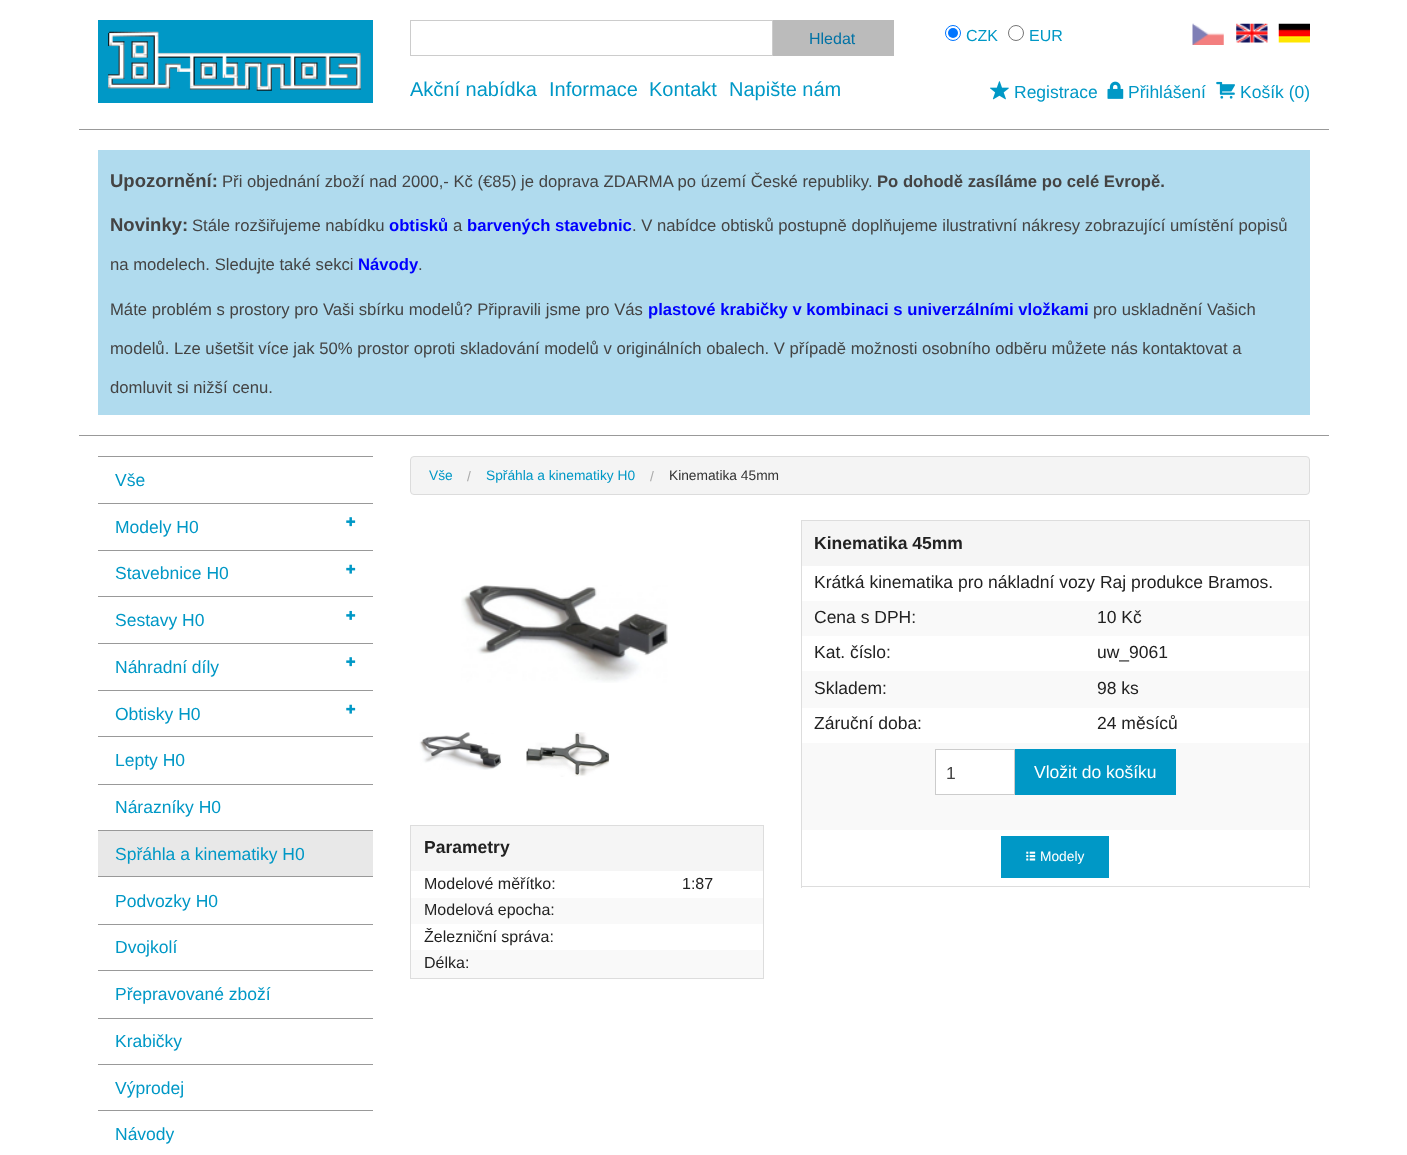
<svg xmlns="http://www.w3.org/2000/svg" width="1407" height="1155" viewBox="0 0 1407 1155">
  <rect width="100%" height="100%" fill="#ffffff"/>
  <rect x="98" y="20" width="275" height="83" fill="#0098c6"/>
  <image x="108" y="31" width="253" height="60" href="img1.png"/>
  <rect x="410.5" y="20.5" width="362" height="35" fill="none" stroke="#cccccc"/>
  <rect x="773" y="20" width="121" height="36" fill="#bbbbbb"/>
  <text x="809" y="44" font-family="Liberation Sans" font-size="16" fill="#0072a5">Hledat</text>
  <text x="410" y="96" font-family="Liberation Sans" font-size="20" fill="#0098c6">Akční nabídka</text>
  <text x="549" y="96" font-family="Liberation Sans" font-size="20" fill="#0098c6">Informace</text>
  <text x="649" y="96" font-family="Liberation Sans" font-size="20" fill="#0098c6">Kontakt</text>
  <text x="729" y="96" font-family="Liberation Sans" font-size="20" fill="#0098c6">Napište nám</text>
  <circle cx="953" cy="33" r="7.5" fill="none" stroke="#0075ff"/>
  <circle cx="953" cy="33" r="5" fill="#0075ff"/>
  <text x="966" y="41" font-family="Liberation Sans" font-size="16" fill="#0098c6">CZK</text>
  <circle cx="1016" cy="33" r="7.5" fill="none" stroke="#767676"/>
  <text x="1029" y="41" font-family="Liberation Sans" font-size="16" fill="#0098c6">EUR</text>
  <image x="1192" y="23" width="32" height="22" href="img2.png"/>
  <image x="1236" y="23" width="32" height="20" href="img3.png"/>
  <image x="1278" y="23" width="32" height="20" href="img4.png"/>
  <image x="990" y="81" width="19" height="19" href="img5.png"/>
  <text x="1014" y="98" font-family="Liberation Sans" font-size="17.5" fill="#0098c6">Registrace</text>
  <image x="1107" y="81" width="17" height="18" href="img6.png"/>
  <text x="1128" y="98" font-family="Liberation Sans" font-size="17.5" fill="#0098c6">Přihlášení</text>
  <image x="1216" y="81" width="19" height="18" href="img7.png"/>
  <text x="1240" y="98" font-family="Liberation Sans" font-size="17.5" fill="#0098c6">Košík (0)</text>
  <rect x="79" y="129" width="1250" height="1" fill="#999999"/>
  <rect x="98" y="150" width="1212" height="265" fill="#b0dbee"/>
  <text x="110" y="187" font-family="Liberation Sans" font-size="18.5" font-weight="bold" fill="#444444">Upozornění:</text>
  <text x="222" y="187" font-family="Liberation Sans" font-size="16.67" fill="#444444">Při objednání zboží nad 2000,- Kč (€85) je doprava ZDARMA po území České republiky.</text>
  <text x="877" y="187" font-family="Liberation Sans" font-size="16.67" font-weight="bold" fill="#444444">Po dohodě zasíláme po celé Evropě.</text>
  <text x="110" y="231" font-family="Liberation Sans" font-size="18.5" font-weight="bold" fill="#444444">Novinky:</text>
  <text x="192" y="231" font-family="Liberation Sans" font-size="16.67" fill="#444444">Stále rozšiřujeme nabídku</text>
  <text x="389" y="231" font-family="Liberation Sans" font-size="16.67" font-weight="bold" fill="#0000ff">obtisků</text>
  <text x="453" y="231" font-family="Liberation Sans" font-size="16.67" fill="#444444">a</text>
  <text x="467" y="231" font-family="Liberation Sans" font-size="16.67" font-weight="bold" fill="#0000ff">barvených stavebnic</text>
  <text x="632" y="231" font-family="Liberation Sans" font-size="16.67" fill="#444444">. V nabídce obtisků postupně doplňujeme ilustrativní nákresy zobrazující umístění popisů</text>
  <text x="110" y="270" font-family="Liberation Sans" font-size="16.67" fill="#444444">na modelech. Sledujte také sekci</text>
  <text x="358" y="270" font-family="Liberation Sans" font-size="16.67" font-weight="bold" fill="#0000ff">Návody</text>
  <text x="418" y="270" font-family="Liberation Sans" font-size="16.67" fill="#444444">.</text>
  <text x="110" y="315" font-family="Liberation Sans" font-size="16.67" fill="#444444">Máte problém s prostory pro Vaši sbírku modelů? Připravili jsme pro Vás</text>
  <text x="648" y="315" font-family="Liberation Sans" font-size="16.67" font-weight="bold" fill="#0000ff">plastové krabičky v kombinaci s univerzálními vložkami</text>
  <text x="1093" y="315" font-family="Liberation Sans" font-size="16.67" fill="#444444">pro uskladnění Vašich</text>
  <text x="110" y="354" font-family="Liberation Sans" font-size="16.67" fill="#444444">modelů. Lze ušetšit více jak 50% prostor oproti skladování modelů v originálních obalech. V případě možnosti osobního odběru můžete nás kontaktovat a</text>
  <text x="110" y="393" font-family="Liberation Sans" font-size="16.67" fill="#444444">domluvit si nižší cenu.</text>
  <rect x="79" y="435" width="1250" height="1" fill="#999999"/>
  <rect x="98" y="456" width="275" height="1" fill="#999999"/>
  <text x="115" y="486" font-family="Liberation Sans" font-size="17.5" fill="#0098c6">Vše</text>
  <rect x="98" y="503" width="275" height="1" fill="#999999"/>
  <text x="115" y="533" font-family="Liberation Sans" font-size="17.5" fill="#0098c6">Modely H0</text>
  <image x="346" y="517" width="10" height="10" href="img8.png"/>
  <rect x="98" y="550" width="275" height="1" fill="#999999"/>
  <text x="115" y="579" font-family="Liberation Sans" font-size="17.5" fill="#0098c6">Stavebnice H0</text>
  <image x="346" y="564" width="10" height="10" href="img9.png"/>
  <rect x="98" y="596" width="275" height="1" fill="#999999"/>
  <text x="115" y="626" font-family="Liberation Sans" font-size="17.5" fill="#0098c6">Sestavy H0</text>
  <image x="346" y="610" width="10" height="10" href="img10.png"/>
  <rect x="98" y="643" width="275" height="1" fill="#999999"/>
  <text x="115" y="673" font-family="Liberation Sans" font-size="17.5" fill="#0098c6">Náhradní díly</text>
  <image x="346" y="657" width="10" height="10" href="img8.png"/>
  <rect x="98" y="690" width="275" height="1" fill="#999999"/>
  <text x="115" y="720" font-family="Liberation Sans" font-size="17.5" fill="#0098c6">Obtisky H0</text>
  <image x="346" y="704" width="10" height="10" href="img9.png"/>
  <rect x="98" y="736" width="275" height="1" fill="#999999"/>
  <text x="115" y="766" font-family="Liberation Sans" font-size="17.5" fill="#0098c6">Lepty H0</text>
  <rect x="98" y="784" width="275" height="1" fill="#999999"/>
  <text x="115" y="813" font-family="Liberation Sans" font-size="17.5" fill="#0098c6">Nárazníky H0</text>
  <rect x="98" y="830" width="275" height="1" fill="#999999"/>
  <rect x="98" y="831" width="275" height="45" fill="#e8e8e8"/>
  <text x="115" y="860" font-family="Liberation Sans" font-size="17.5" fill="#0098c6">Spřáhla a kinematiky H0</text>
  <rect x="98" y="876" width="275" height="1" fill="#999999"/>
  <text x="115" y="907" font-family="Liberation Sans" font-size="17.5" fill="#0098c6">Podvozky H0</text>
  <rect x="98" y="924" width="275" height="1" fill="#999999"/>
  <text x="115" y="953" font-family="Liberation Sans" font-size="17.5" fill="#0098c6">Dvojkolí</text>
  <rect x="98" y="970" width="275" height="1" fill="#999999"/>
  <text x="115" y="1000" font-family="Liberation Sans" font-size="17.5" fill="#0098c6">Přepravované zboží</text>
  <rect x="98" y="1018" width="275" height="1" fill="#999999"/>
  <text x="115" y="1047" font-family="Liberation Sans" font-size="17.5" fill="#0098c6">Krabičky</text>
  <rect x="98" y="1064" width="275" height="1" fill="#999999"/>
  <text x="115" y="1094" font-family="Liberation Sans" font-size="17.5" fill="#0098c6">Výprodej</text>
  <rect x="98" y="1110" width="275" height="1" fill="#999999"/>
  <text x="115" y="1140" font-family="Liberation Sans" font-size="17.5" fill="#0098c6">Návody</text>
  <rect x="410.5" y="456.5" width="899" height="38" rx="3.5" fill="#f4f4f4" stroke="#dcdcdc"/>
  <text x="429" y="480" font-family="Liberation Sans" font-size="13.75" fill="#0098c6">Vše</text>
  <text x="467" y="481" font-family="Liberation Sans" font-size="13.75" fill="#aaaaaa">/</text>
  <text x="486" y="480" font-family="Liberation Sans" font-size="13.75" fill="#0098c6">Spřáhla a kinematiky H0</text>
  <text x="650" y="481" font-family="Liberation Sans" font-size="13.75" fill="#aaaaaa">/</text>
  <text x="669" y="480" font-family="Liberation Sans" font-size="13.75" fill="#333333">Kinematika 45mm</text>
  <rect x="801" y="520" width="509" height="1" fill="#dddddd"/>
  <rect x="1309" y="520" width="1" height="368" fill="#dddddd"/>
  <rect x="801" y="886" width="509" height="1" fill="#dddddd"/>
  <rect x="801" y="520" width="1" height="368" fill="#dddddd"/>
  <rect x="802" y="521" width="507" height="45" fill="#f5f5f5"/>
  <text x="814" y="549" font-family="Liberation Sans" font-size="17.5" font-weight="bold" fill="#222222">Kinematika 45mm</text>
  <text x="814" y="588" font-family="Liberation Sans" font-size="17.5" fill="#222222">Krátká kinematika pro nákladní vozy Raj produkce Bramos.</text>
  <rect x="802" y="601" width="507" height="35" fill="#f9f9f9"/>
  <text x="814" y="623" font-family="Liberation Sans" font-size="17.5" fill="#222222">Cena s DPH:</text>
  <text x="1097" y="623" font-family="Liberation Sans" font-size="17.5" fill="#222222">10 Kč</text>
  <text x="814" y="658" font-family="Liberation Sans" font-size="17.5" fill="#222222">Kat. číslo:</text>
  <text x="1097" y="658" font-family="Liberation Sans" font-size="17.5" fill="#222222">uw_9061</text>
  <rect x="802" y="671" width="507" height="37" fill="#f9f9f9"/>
  <text x="814" y="694" font-family="Liberation Sans" font-size="17.5" fill="#222222">Skladem:</text>
  <text x="1097" y="694" font-family="Liberation Sans" font-size="17.5" fill="#222222">98 ks</text>
  <text x="814" y="729" font-family="Liberation Sans" font-size="17.5" fill="#222222">Záruční doba:</text>
  <text x="1097" y="729" font-family="Liberation Sans" font-size="17.5" fill="#222222">24 měsíců</text>
  <rect x="802" y="743" width="507" height="87" fill="#f9f9f9"/>
  <rect x="935.5" y="749.5" width="79" height="45" fill="#ffffff" stroke="#cccccc"/>
  <text x="946" y="779" font-family="Liberation Sans" font-size="17.5" fill="#444444">1</text>
  <rect x="1015" y="749" width="161" height="46" fill="#0098c6"/>
  <text x="1034" y="778" font-family="Liberation Sans" font-size="17.5" fill="#ffffff">Vložit do košíku</text>
  <rect x="1001" y="836" width="108" height="42" fill="#0098c6"/>
  <image x="1026" y="851" width="10" height="10" href="img11.png"/>
  <text x="1040" y="861" font-family="Liberation Sans" font-size="13.75" fill="#ffffff">Modely</text>
  <image x="461" y="585" width="207" height="98" href="img12.png"/>
  <image x="419" y="732" width="83" height="38" href="img13.png"/>
  <image x="526" y="732" width="84" height="45" href="img14.png"/>
  <rect x="410" y="825" width="354" height="1" fill="#dddddd"/>
  <rect x="763" y="825" width="1" height="154" fill="#dddddd"/>
  <rect x="410" y="978" width="354" height="1" fill="#dddddd"/>
  <rect x="410" y="825" width="1" height="154" fill="#dddddd"/>
  <rect x="411" y="826" width="352" height="45" fill="#f5f5f5"/>
  <text x="424" y="853" font-family="Liberation Sans" font-size="17.5" font-weight="bold" fill="#222222">Parametry</text>
  <text x="424" y="889" font-family="Liberation Sans" font-size="16" fill="#222222">Modelové měřítko:</text>
  <text x="682" y="889" font-family="Liberation Sans" font-size="16" fill="#222222">1:87</text>
  <rect x="411" y="898" width="352" height="26" fill="#f9f9f9"/>
  <text x="424" y="915" font-family="Liberation Sans" font-size="16" fill="#222222">Modelová epocha:</text>
  <text x="424" y="942" font-family="Liberation Sans" font-size="16" fill="#222222">Železniční správa:</text>
  <rect x="411" y="950" width="352" height="28" fill="#f9f9f9"/>
  <text x="424" y="968" font-family="Liberation Sans" font-size="16" fill="#222222">Délka:</text>
</svg>
